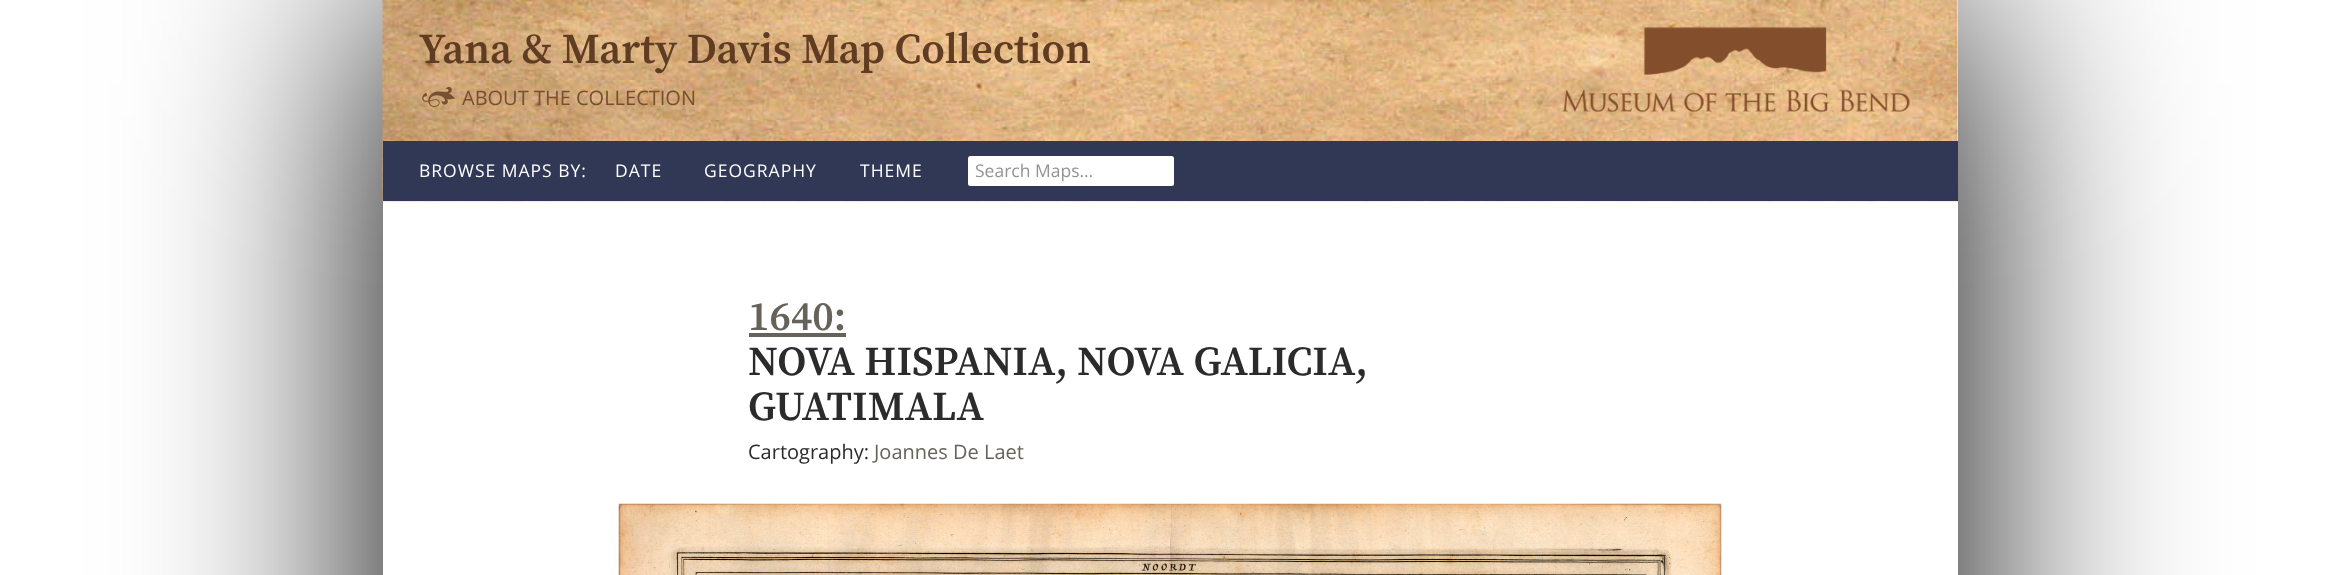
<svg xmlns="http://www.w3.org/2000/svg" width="2338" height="575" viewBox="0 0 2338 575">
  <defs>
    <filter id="blur1" x="-50%" y="-200%" width="200%" height="500%"><feGaussianBlur stdDeviation="125"/></filter>
  </defs>
  <rect width="100%" height="100%" fill="#ffffff"/>
  <rect x="383" y="0" width="1575" height="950" fill="#000000" filter="url(#blur1)"/>
  <rect x="383" y="0" width="1575" height="575" fill="#ffffff"/>
  <image x="382" y="0" width="1576" height="202" href="img1.png"/>
  <text x="419" y="63" font-family="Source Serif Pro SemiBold" font-size="42.5" font-weight="600" fill="#5f3c22">Yana &amp; Marty Davis Map Collection</text>
  <image x="1562" y="26" width="348" height="86" href="img2.png"/>
  <image x="422" y="86" width="33" height="21" href="img3.png"/>
  <text x="462" y="105" font-family="Open Sans" font-size="20" fill="#764f31">ABOUT THE COLLECTION</text>
  <rect x="383" y="141" width="1575" height="60" fill="#313855"/>
  <text x="419" y="177" font-family="Open Sans" font-size="17.5" letter-spacing="1" fill="#ffffff">BROWSE MAPS BY:</text>
  <text x="615" y="177" font-family="Open Sans" font-size="17.5" letter-spacing="1" fill="#ffffff">DATE</text>
  <text x="704" y="177" font-family="Open Sans" font-size="17.5" letter-spacing="1" fill="#ffffff">GEOGRAPHY</text>
  <text x="860" y="177" font-family="Open Sans" font-size="17.5" letter-spacing="1" fill="#ffffff">THEME</text>
  <rect x="968" y="156" width="206" height="30" rx="2.5" fill="#ffffff"/>
  <text x="975" y="177" font-family="Open Sans" font-size="17.5" fill="#939393">Search Maps…</text>
  <text x="748" y="330" font-family="Source Serif Pro SemiBold" font-size="41.25" font-weight="600" fill="#67635a">1640:</text>
  <rect x="749" y="333" width="97" height="4" fill="#67635a"/>
  <text x="748" y="375" font-family="Source Serif Pro SemiBold" font-size="41.25" font-weight="600" fill="#2b2b2b">NOVA HISPANIA, NOVA GALICIA,</text>
  <text x="748" y="420" font-family="Source Serif Pro SemiBold" font-size="41.25" font-weight="600" fill="#2b2b2b">GUATIMALA</text>
  <text x="748" y="459" font-family="Open Sans" font-size="20" fill="#2b2b2b">Cartography:</text>
  <text x="874" y="459" font-family="Open Sans" font-size="20" fill="#67635a">Joannes De Laet</text>
  <image x="618" y="503" width="1104" height="72" href="img4.png"/>
</svg>
